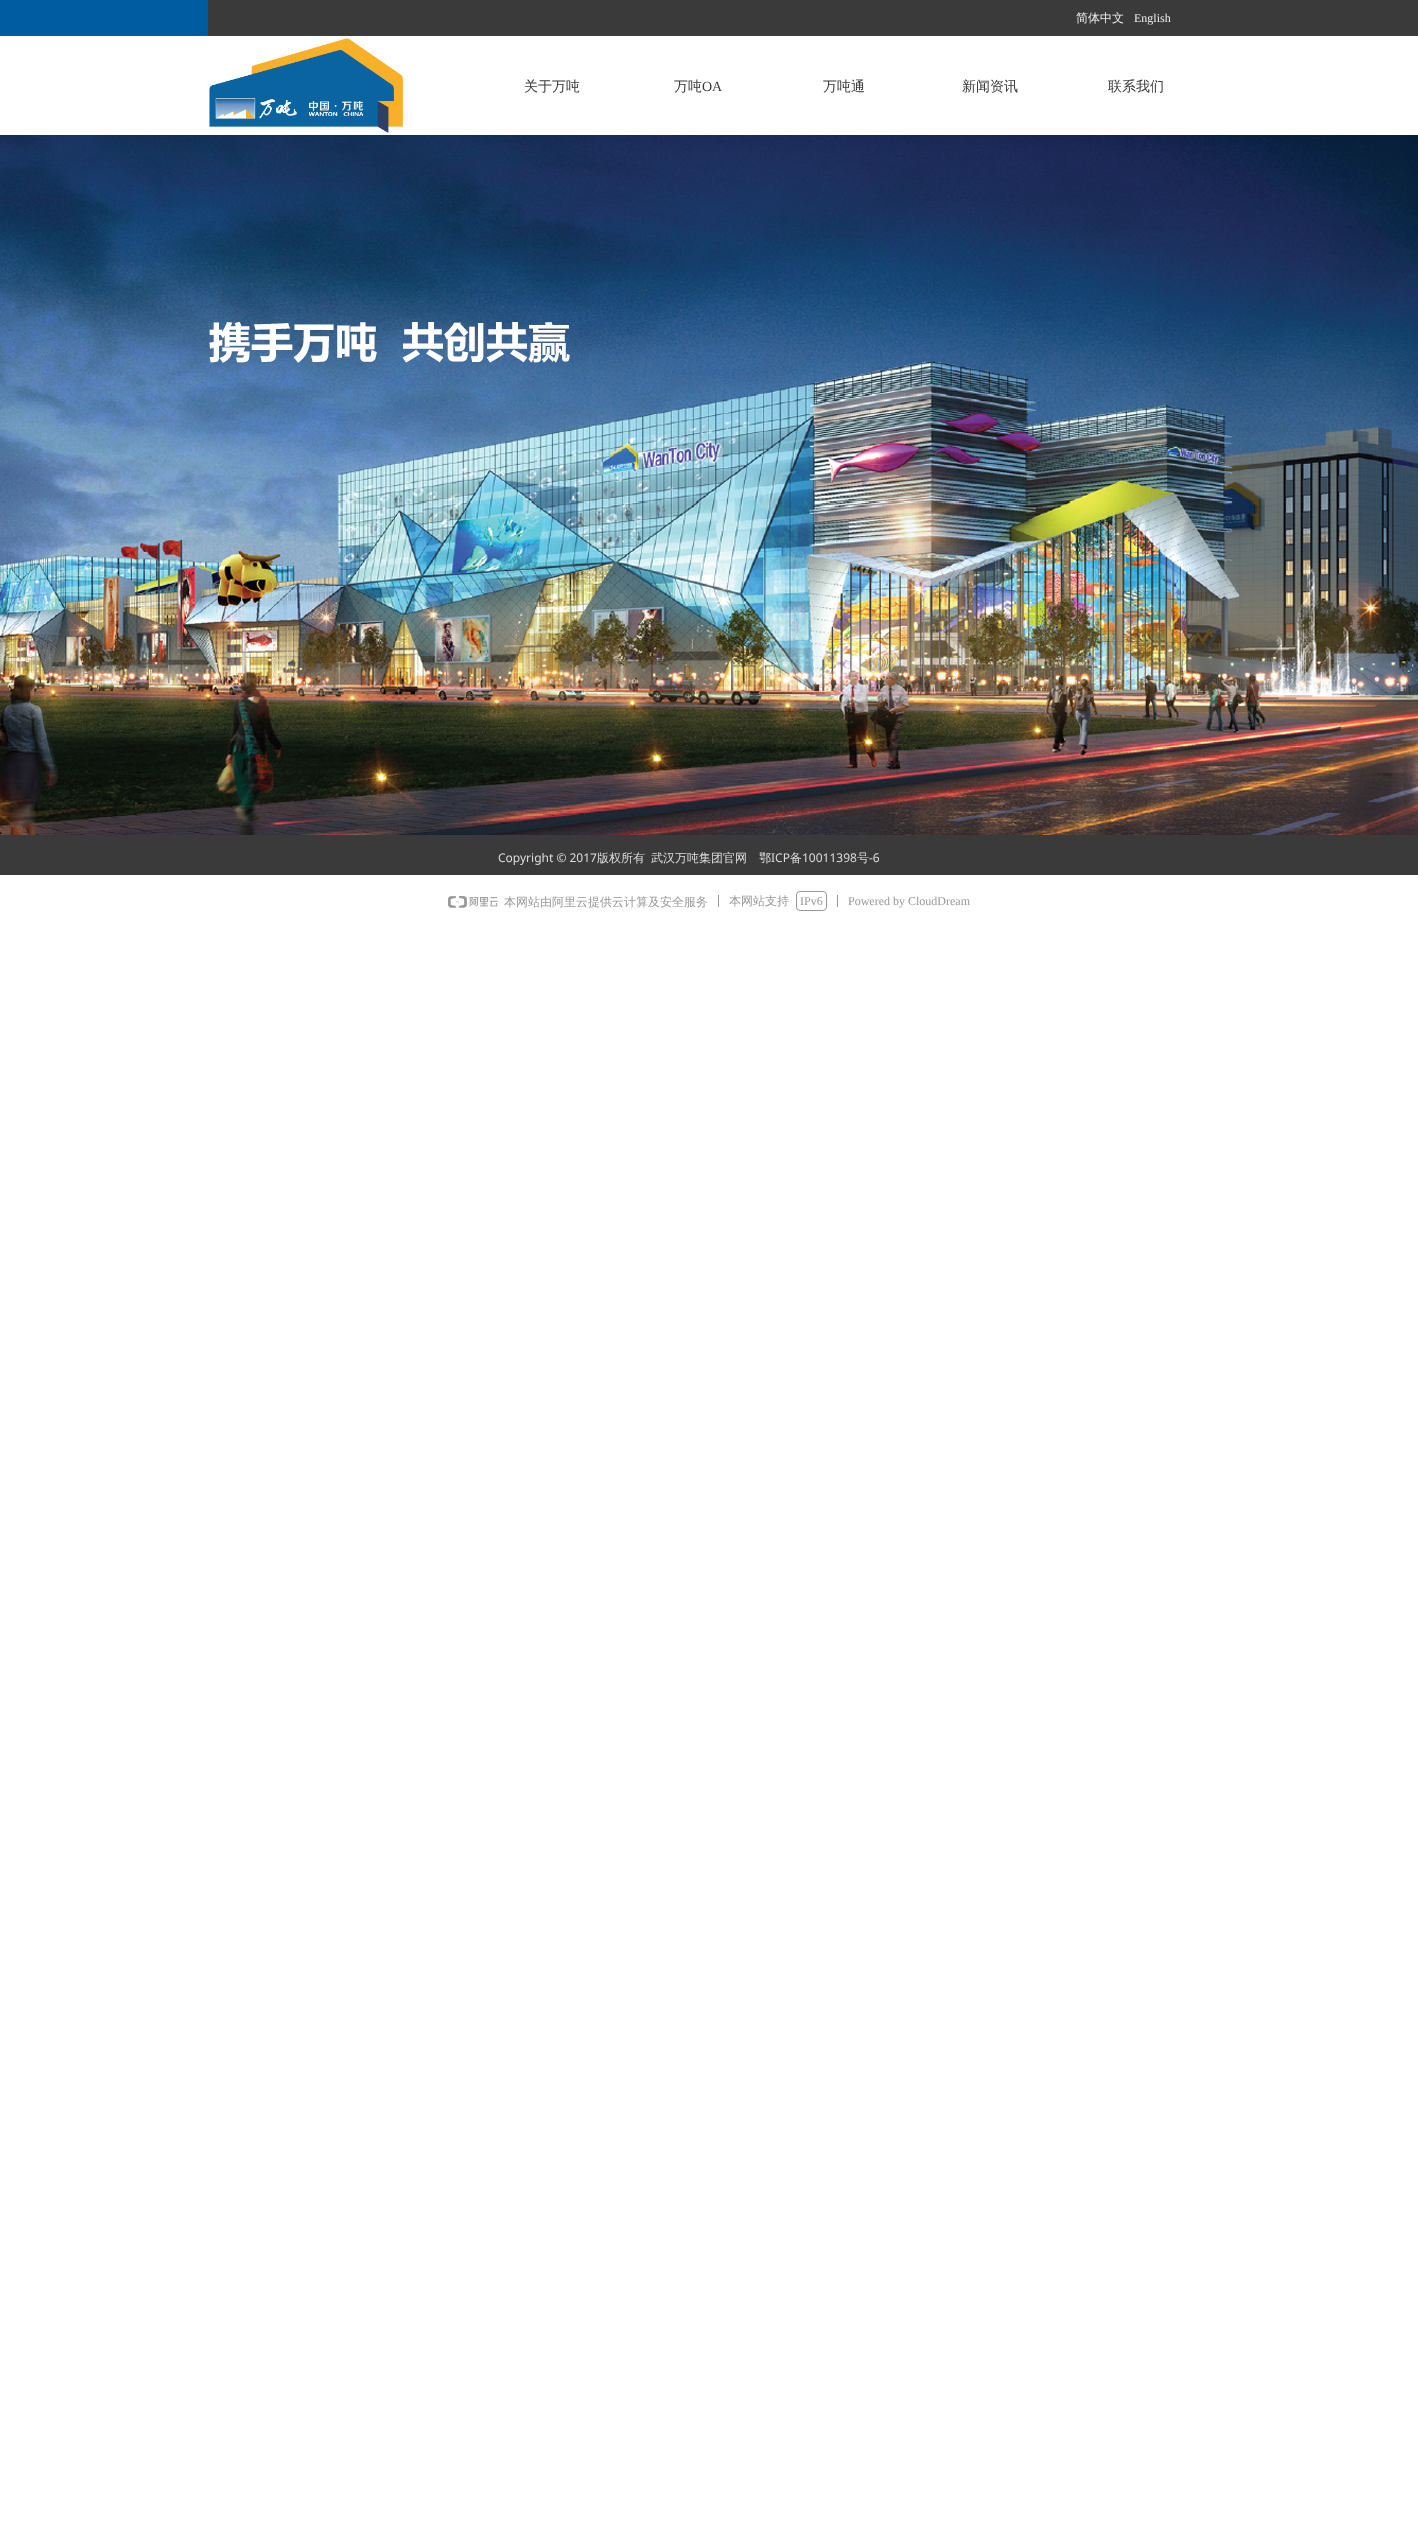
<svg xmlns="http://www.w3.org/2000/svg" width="1418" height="2528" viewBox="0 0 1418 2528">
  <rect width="100%" height="100%" fill="#ffffff"/>
  <image x="0" y="0" width="1418" height="36" href="img1.png"/>
  <text x="1076" y="22" font-family="WenQuanYi Zen Hei" font-size="12" font-weight="500" fill="#eeeeee">简体中文</text>
  <text x="1134" y="22" font-family="Liberation Serif" font-size="12" fill="#eeeeee">English</text>
  <image x="209" y="38" width="194" height="95" href="img2.png"/>
  <text x="524" y="91" font-family="WenQuanYi Zen Hei" font-size="14" font-weight="500" fill="#383838">关于万吨</text>
  <text x="674" y="91" font-family="WenQuanYi Zen Hei" font-size="14" font-weight="500" fill="#383838">万吨</text>
  <text x="702" y="91" font-family="Liberation Serif" font-size="14" fill="#383838">OA</text>
  <text x="823" y="91" font-family="WenQuanYi Zen Hei" font-size="14" font-weight="500" fill="#383838">万吨通</text>
  <text x="962" y="91" font-family="WenQuanYi Zen Hei" font-size="14" font-weight="500" fill="#383838">新闻资讯</text>
  <text x="1108" y="91" font-family="WenQuanYi Zen Hei" font-size="14" font-weight="500" fill="#383838">联系我们</text>
  <image x="0" y="135" width="1418" height="700" href="img3.png"/>
  <rect x="0" y="835" width="1418" height="40" fill="#3a3a3a"/>
  <text x="498" y="862" font-family="Noto Sans" font-size="12" fill="#dddddd">Copyright © 2017</text>
  <text x="597" y="862" font-family="WenQuanYi Zen Hei" font-size="12" font-weight="500" fill="#dddddd">版权所有</text>
  <text x="651" y="862" font-family="WenQuanYi Zen Hei" font-size="12" font-weight="500" fill="#dddddd">武汉万吨集团官网</text>
  <text x="759" y="862" font-family="WenQuanYi Zen Hei" font-size="12" font-weight="500" fill="#dddddd">鄂</text>
  <text x="771" y="862" font-family="Noto Sans" font-size="12" fill="#dddddd">ICP</text>
  <text x="790" y="862" font-family="WenQuanYi Zen Hei" font-size="12" font-weight="500" fill="#dddddd">备</text>
  <text x="802" y="862" font-family="Noto Sans" font-size="12" fill="#dddddd">10011398</text>
  <text x="857" y="862" font-family="WenQuanYi Zen Hei" font-size="12" font-weight="500" fill="#dddddd">号</text>
  <text x="869" y="862" font-family="Noto Sans" font-size="12" fill="#dddddd">-6</text>
  <image x="448" y="896" width="50" height="12" href="img4.png"/>
  <text x="504" y="906" font-family="WenQuanYi Zen Hei" font-size="12" font-weight="500" fill="#989898">本网站由阿里云提供云计算及安全服务</text>
  <rect x="718" y="895" width="1" height="12" fill="#989898"/>
  <text x="729" y="905" font-family="WenQuanYi Zen Hei" font-size="12" font-weight="500" fill="#989898">本网站支持</text>
  <rect x="796.5" y="891.5" width="30" height="19" rx="3.5" fill="none" stroke="#989898"/>
  <text x="800" y="905" font-family="Liberation Serif" font-size="12" fill="#989898">IPv6</text>
  <rect x="837" y="895" width="1" height="12" fill="#989898"/>
  <text x="848" y="905" font-family="Liberation Serif" font-size="12" fill="#989898">Powered by CloudDream</text>
</svg>
